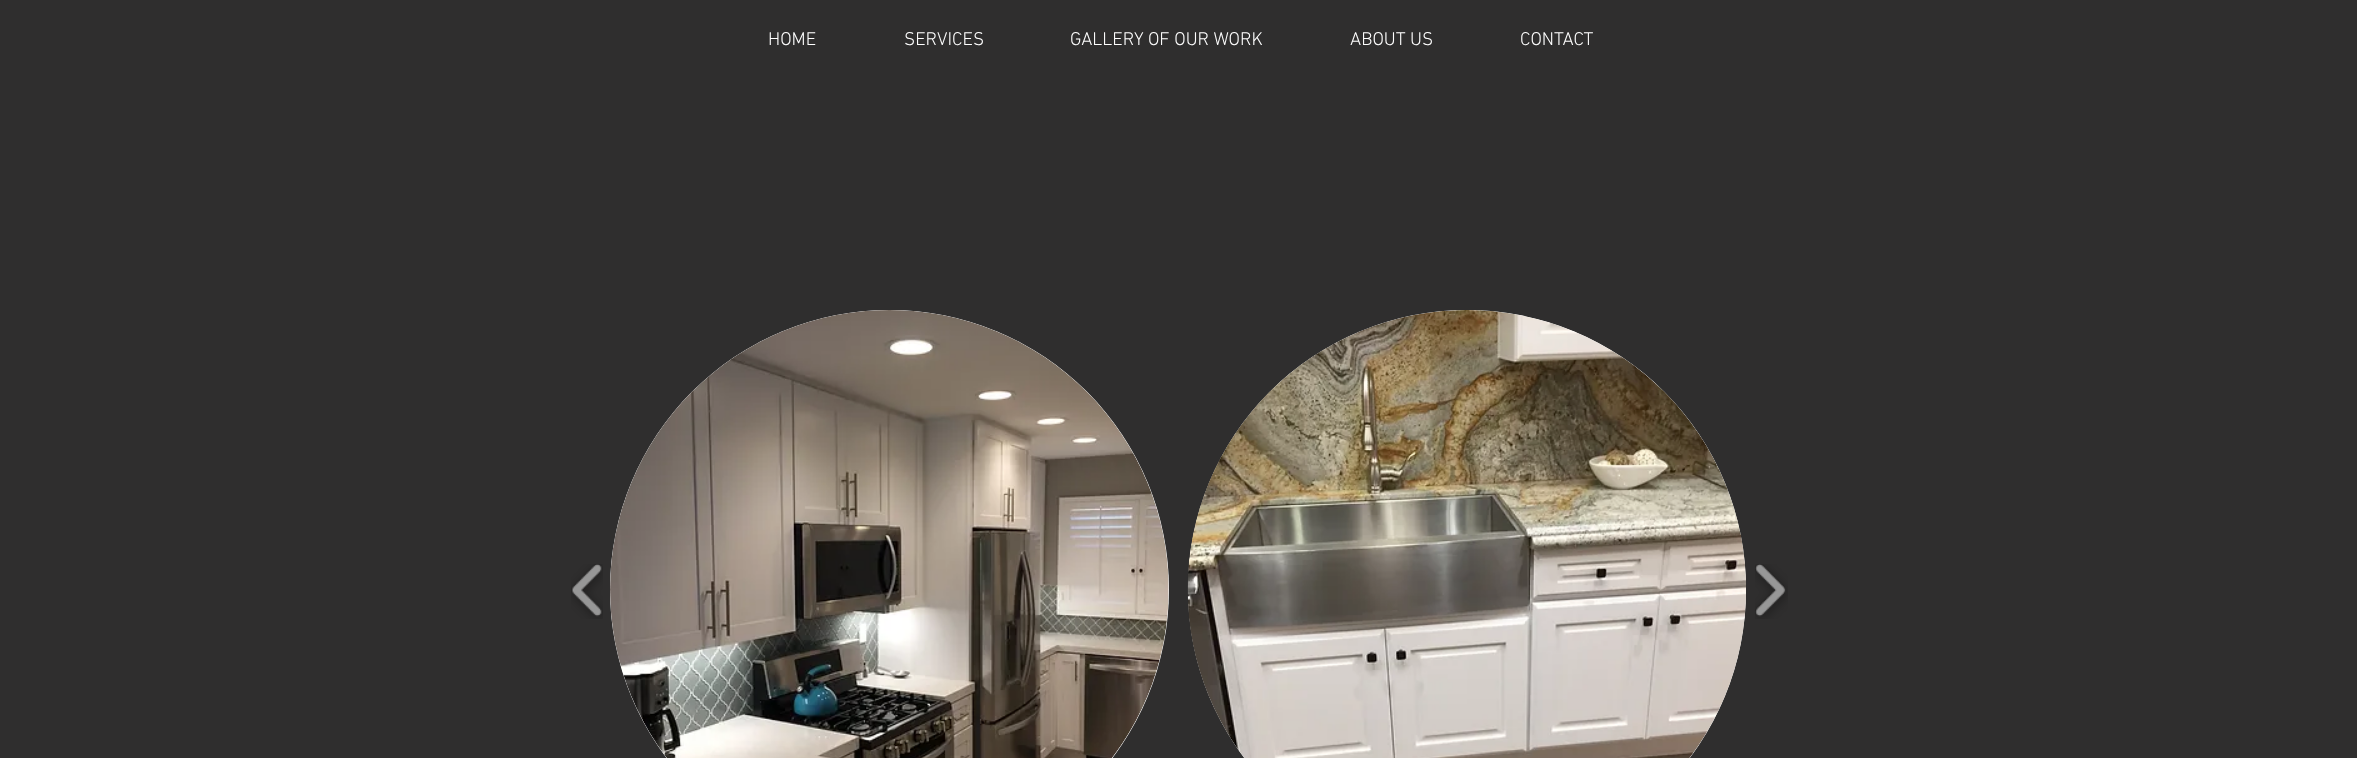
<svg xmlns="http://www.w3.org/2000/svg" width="2357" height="758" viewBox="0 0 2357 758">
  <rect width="100%" height="100%" fill="#2f2e2e"/>
  <text x="768" y="45" font-family="'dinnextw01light'" font-size="18.75" font-weight="300" fill="#ffffff">HOME</text>
  <text x="904" y="45" font-family="'dinnextw01light'" font-size="18.75" font-weight="300" fill="#ffffff">SERVICES</text>
  <text x="1070" y="45" font-family="'dinnextw01light'" font-size="18.75" font-weight="300" fill="#ffffff">GALLERY OF OUR WORK</text>
  <text x="1350" y="45" font-family="'dinnextw01light'" font-size="18.75" font-weight="300" fill="#ffffff">ABOUT US</text>
  <text x="1520" y="45" font-family="'dinnextw01light'" font-size="18.75" font-weight="300" fill="#ffffff">CONTACT</text>
  <image x="571" y="564" width="32" height="55" href="img1.png"/>
  <circle cx="889.5" cy="589.5" r="279.5" fill="#ffffff"/>
  <image x="610" y="310" width="559" height="448" href="img2.png"/>
  <rect x="1188" y="310" width="558" height="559" rx="279" fill="#ffffff"/>
  <image x="1187" y="310" width="559" height="448" href="img3.png"/>
  <image x="1755" y="564" width="33" height="55" href="img4.png"/>
</svg>
